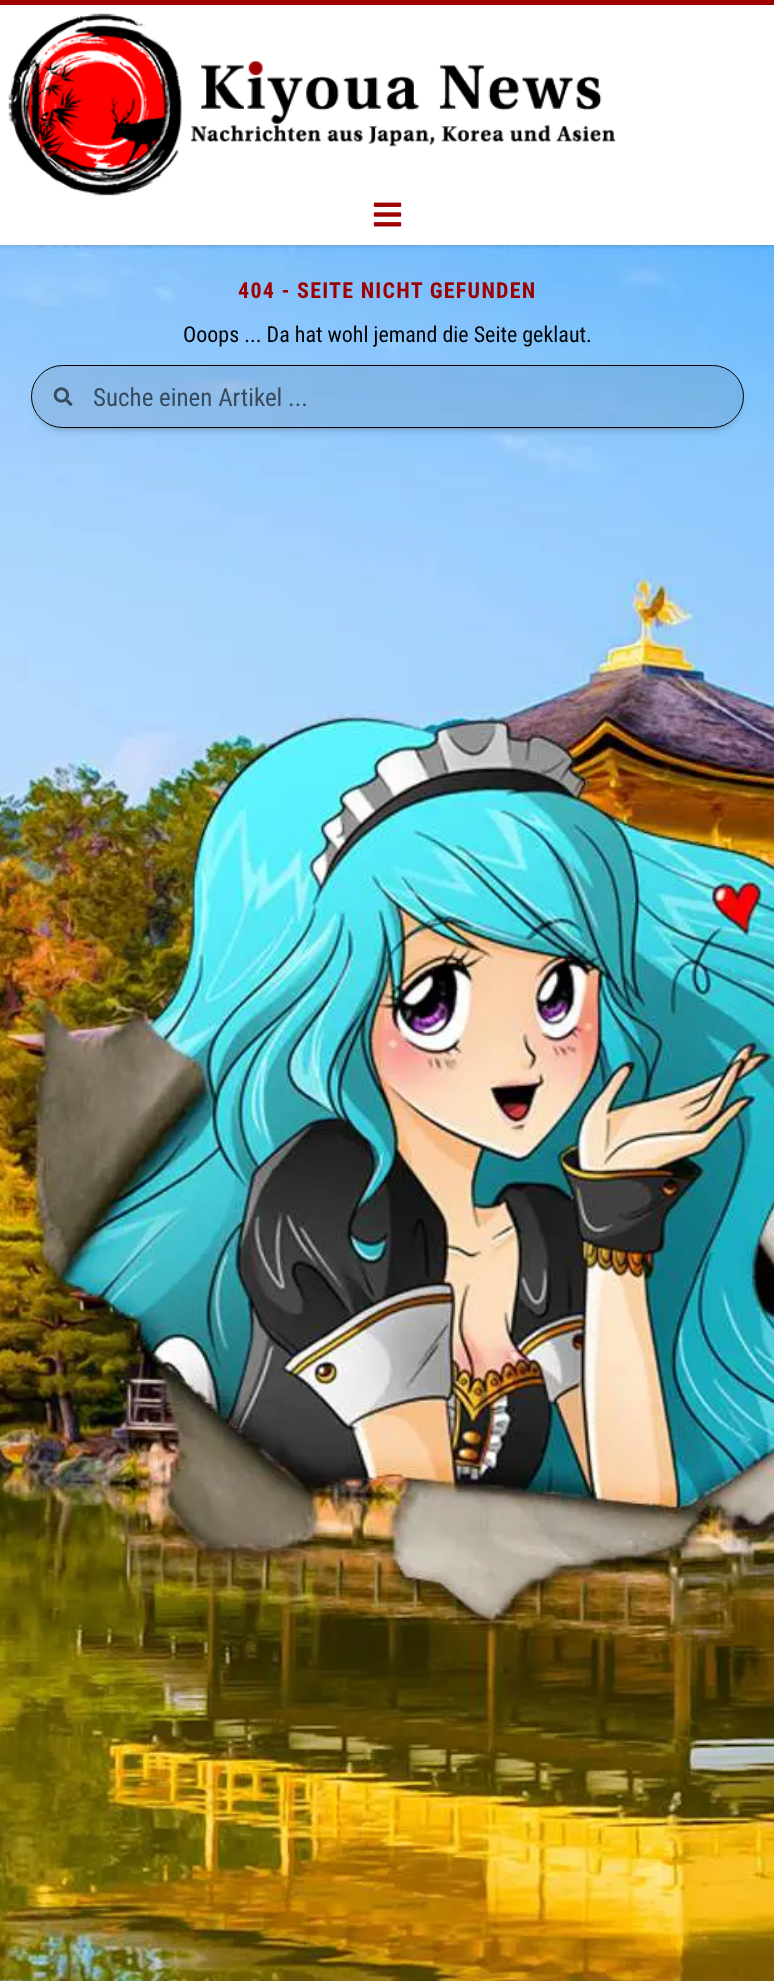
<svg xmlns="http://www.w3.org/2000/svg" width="774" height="1981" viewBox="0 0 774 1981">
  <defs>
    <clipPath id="clip1"><rect x="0" y="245" width="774" height="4"/></clipPath>
    <filter id="blur1" x="-50%" y="-200%" width="200%" height="500%"><feGaussianBlur stdDeviation="6"/></filter>
    <clipPath id="clip2"><path d="M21 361H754V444H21ZM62.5 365H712.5C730 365 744 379 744 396.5C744 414 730 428 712.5 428H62.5C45 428 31 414 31 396.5C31 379 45 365 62.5 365Z" clip-rule="evenodd"/></clipPath>
    <filter id="blur2" x="-50%" y="-200%" width="200%" height="500%"><feGaussianBlur stdDeviation="5.5"/></filter>
  </defs>
  <rect width="100%" height="100%" fill="#ffffff"/>
  <image x="0" y="245" width="774" height="1736" href="img3.png"/>
  <g clip-path="url(#clip1)">
    <rect x="0" y="-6" width="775" height="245" fill="#000000" fill-opacity="0.5" filter="url(#blur1)"/>
  </g>
  <rect x="0" y="0" width="774" height="5" fill="#9f0000"/>
  <image x="8" y="13" width="608" height="183" href="img1.png"/>
  <image x="373" y="202" width="29" height="25" href="img2.png"/>
  <text x="238" y="298" font-family="Roboto Condensed" font-size="22" font-weight="bold" letter-spacing="1.25" fill="#9f0000">404 - SEITE NICHT GEFUNDEN</text>
  <text x="183" y="342" font-family="Roboto Condensed" font-size="22" fill="#000000">Ooops ... Da hat wohl jemand die Seite geklaut.</text>
  <g clip-path="url(#clip2)">
    <rect x="39" y="379" width="697" height="47" rx="23.5" fill="#000000" fill-opacity="0.5" filter="url(#blur2)"/>
  </g>
  <rect x="31.5" y="365.5" width="712" height="62" rx="31" fill="#000000" fill-opacity="0.08" stroke="#000000"/>
  <image x="53" y="387" width="20" height="19" href="img4.png"/>
  <text x="93" y="406" font-family="Roboto Condensed" font-size="25" fill="#374b5d">Suche einen Artikel ...</text>
</svg>
